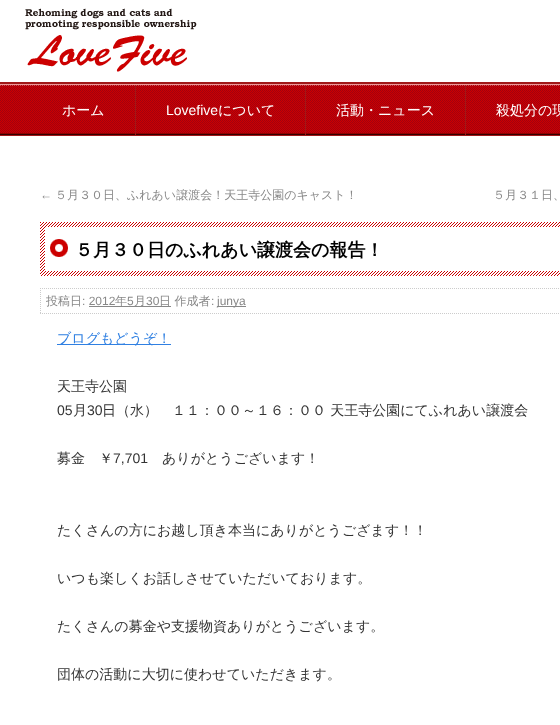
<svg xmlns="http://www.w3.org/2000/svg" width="560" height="725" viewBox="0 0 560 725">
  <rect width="100%" height="100%" fill="#ffffff"/>
  <image x="0" y="82" width="560" height="54" href="img1.png"/>
  <image x="25" y="8" width="172" height="64" href="img2.png"/>
  <rect x="135" y="85" width="1" height="51" fill="#a11818"/>
  <text x="62" y="115" font-family="WenQuanYi Zen Hei" font-size="14" font-weight="500" fill="#ffffff">ホーム</text>
  <rect x="305" y="85" width="1" height="51" fill="#a11818"/>
  <text x="166" y="115" font-family="Liberation Sans" font-size="14" fill="#ffffff">Lovefive</text>
  <text x="218" y="115" font-family="WenQuanYi Zen Hei" font-size="14" font-weight="500" fill="#ffffff">について</text>
  <rect x="465" y="85" width="1" height="51" fill="#a11818"/>
  <text x="336" y="115" font-family="WenQuanYi Zen Hei" font-size="14" font-weight="500" fill="#ffffff">活動・ニュース</text>
  <text x="496" y="115" font-family="WenQuanYi Zen Hei" font-size="14" font-weight="500" fill="#ffffff">殺処分の現</text>
  <text x="40" y="199" font-family="Liberation Sans" font-size="12" fill="#888888">←</text>
  <text x="55" y="199" font-family="WenQuanYi Zen Hei" font-size="12" font-weight="500" fill="#888888">５月３０日、ふれあい譲渡会！天王寺公園のキャスト！</text>
  <text x="493" y="199" font-family="WenQuanYi Zen Hei" font-size="12" font-weight="500" fill="#888888">５月３１日、</text>
  <image x="40" y="222" width="520" height="54" href="img3.png"/>
  <text x="75" y="256" font-family="WenQuanYi Zen Hei" font-size="18" font-weight="bold" fill="#000000">５月３０日のふれあい譲渡会の報告！</text>
  <path d="M40 288.5H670" fill="none" stroke="#cccccc" stroke-dasharray="1 1"/>
  <path d="M40 313.5H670" fill="none" stroke="#cccccc" stroke-dasharray="1 1"/>
  <path d="M40.5 288V314" fill="none" stroke="#cccccc" stroke-dasharray="1 1"/>
  <text x="46" y="305" font-family="WenQuanYi Zen Hei" font-size="12" font-weight="500" fill="#888888">投稿日</text>
  <text x="82" y="305" font-family="Liberation Sans" font-size="12" fill="#888888">: 2012</text>
  <rect x="89" y="306" width="82" height="1" fill="#888888"/>
  <text x="115" y="305" font-family="WenQuanYi Zen Hei" font-size="12" font-weight="500" fill="#888888">年</text>
  <text x="127" y="305" font-family="Liberation Sans" font-size="12" fill="#888888">5</text>
  <text x="134" y="305" font-family="WenQuanYi Zen Hei" font-size="12" font-weight="500" fill="#888888">月</text>
  <text x="146" y="305" font-family="Liberation Sans" font-size="12" fill="#888888">30</text>
  <text x="159" y="305" font-family="WenQuanYi Zen Hei" font-size="12" font-weight="500" fill="#888888">日 作成者</text>
  <text x="211" y="305" font-family="Liberation Sans" font-size="12" fill="#888888">:</text>
  <rect x="217" y="306" width="29" height="1" fill="#888888"/>
  <text x="217" y="305" font-family="Liberation Sans" font-size="12" fill="#888888">junya</text>
  <rect x="57" y="344" width="114" height="1" fill="#3080e2"/>
  <text x="57" y="343" font-family="WenQuanYi Zen Hei" font-size="14" font-weight="500" fill="#3080e2">ブログもどうぞ！</text>
  <text x="57" y="391" font-family="WenQuanYi Zen Hei" font-size="14" font-weight="500" fill="#333333">天王寺公園</text>
  <text x="57" y="415" font-family="Liberation Sans" font-size="14" fill="#333333">05</text>
  <text x="73" y="415" font-family="WenQuanYi Zen Hei" font-size="14" font-weight="500" fill="#333333">月</text>
  <text x="87" y="415" font-family="Liberation Sans" font-size="14" fill="#333333">30</text>
  <text x="102" y="415" font-family="WenQuanYi Zen Hei" font-size="14" font-weight="500" fill="#333333">日（水）　１１：００～１６：００ 天王寺公園にてふれあい譲渡会</text>
  <text x="57" y="463" font-family="WenQuanYi Zen Hei" font-size="14" font-weight="500" fill="#333333">募金　￥</text>
  <text x="113" y="463" font-family="Liberation Sans" font-size="14" fill="#333333">7,701</text>
  <text x="162" y="463" font-family="WenQuanYi Zen Hei" font-size="14" font-weight="500" fill="#333333">ありがとうございます！</text>
  <text x="57" y="535" font-family="WenQuanYi Zen Hei" font-size="14" font-weight="500" fill="#333333">たくさんの方にお越し頂き本当にありがとうござます！！</text>
  <text x="57" y="583" font-family="WenQuanYi Zen Hei" font-size="14" font-weight="500" fill="#333333">いつも楽しくお話しさせていただいております。</text>
  <text x="57" y="631" font-family="WenQuanYi Zen Hei" font-size="14" font-weight="500" fill="#333333">たくさんの募金や支援物資ありがとうございます。</text>
  <text x="57" y="679" font-family="WenQuanYi Zen Hei" font-size="14" font-weight="500" fill="#333333">団体の活動に大切に使わせていただきます。</text>
</svg>
